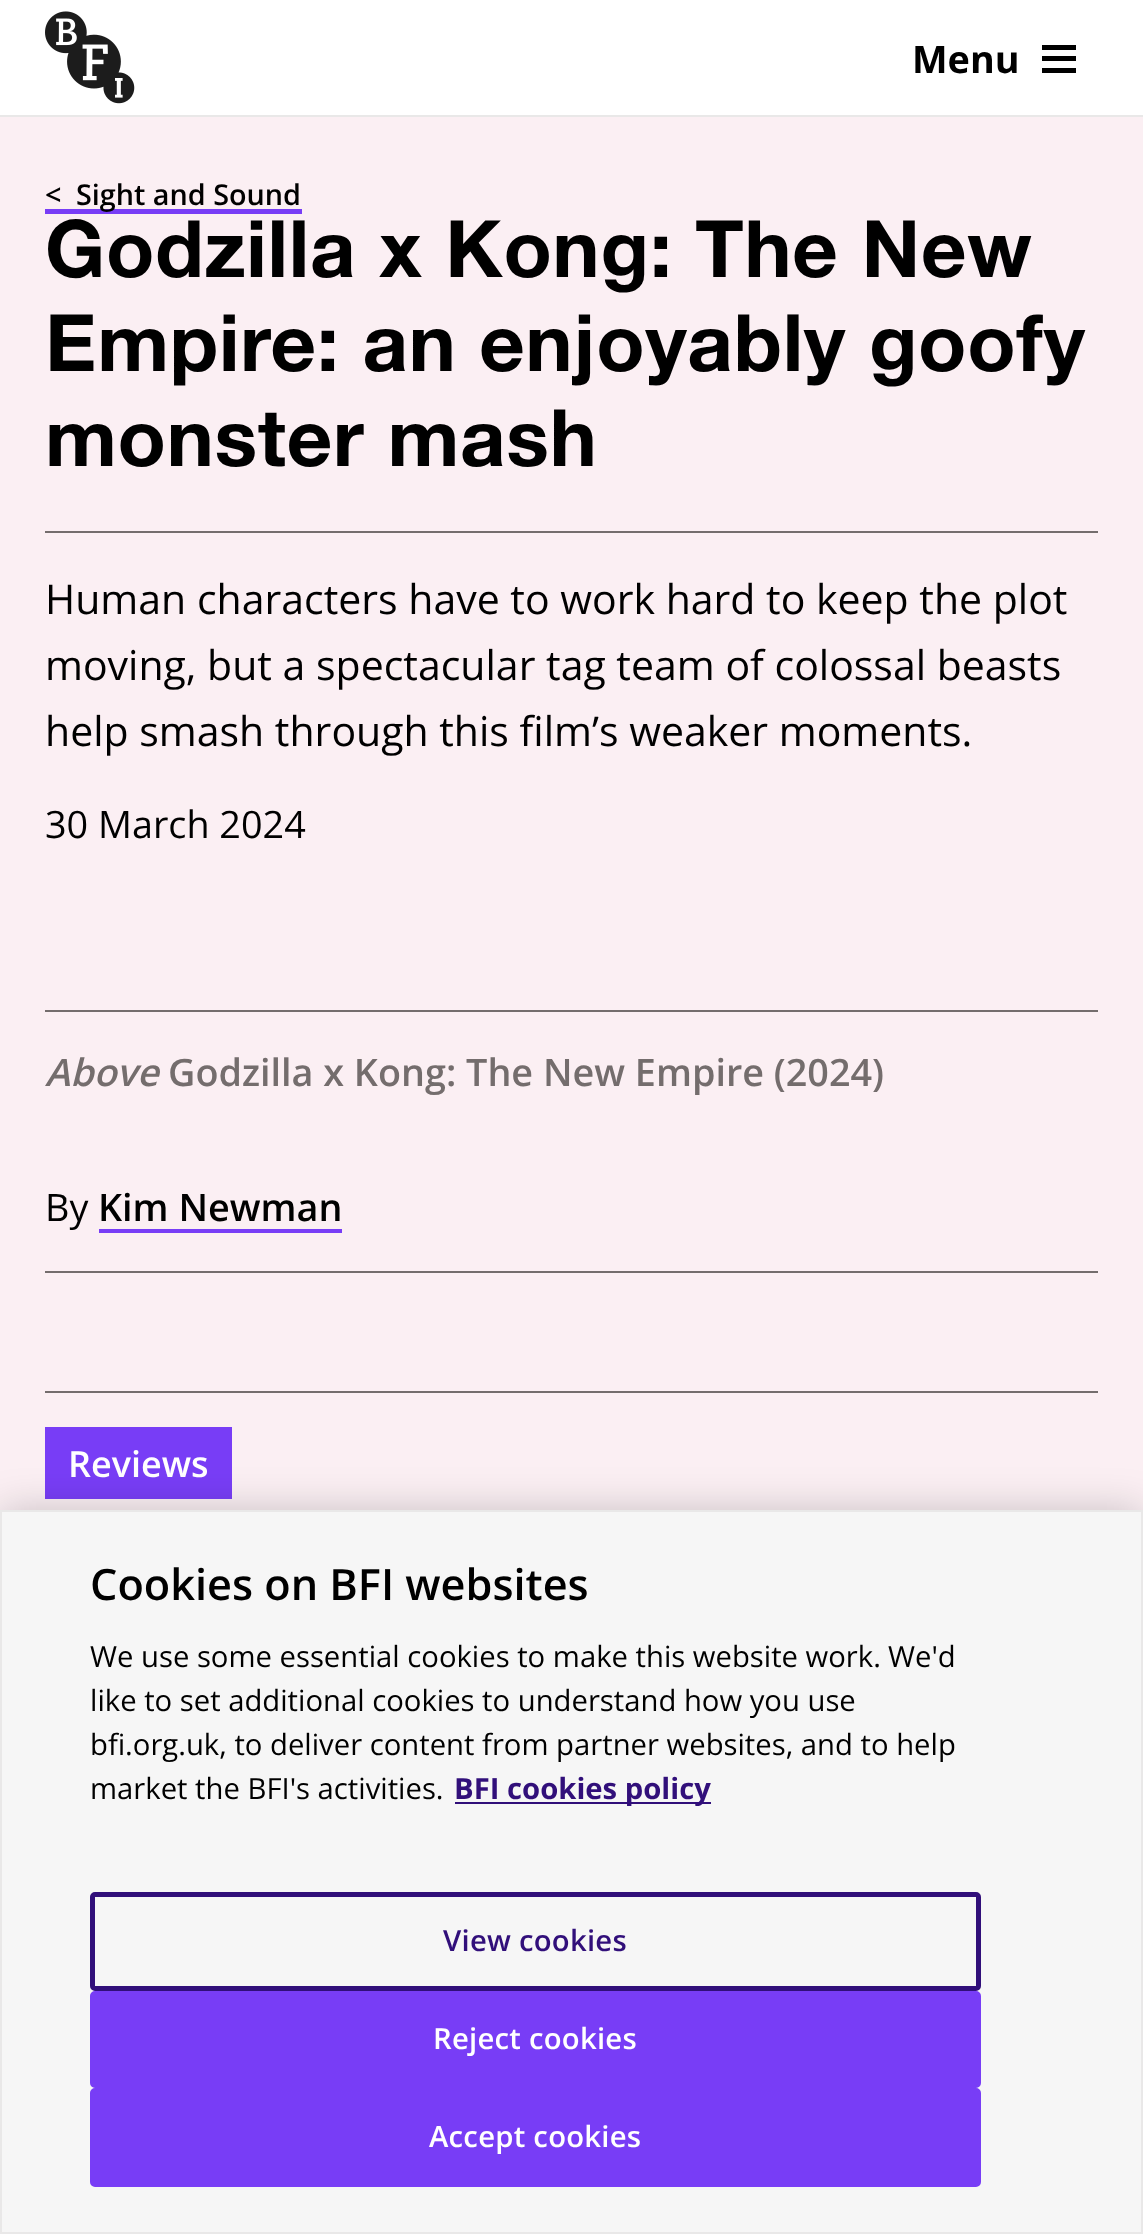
<svg xmlns="http://www.w3.org/2000/svg" width="1143" height="2234" viewBox="0 0 1143 2234">
  <defs>
    <filter id="blur1" x="-50%" y="-200%" width="200%" height="500%"><feGaussianBlur stdDeviation="20"/></filter>
  </defs>
  <rect width="100%" height="100%" fill="#ffffff"/>
  <rect x="0" y="115" width="1143" height="2" fill="#e9e8e8"/>
  <image x="45" y="11" width="90" height="93" href="img1.png"/>
  <text x="912" y="73" font-family="Open Sans" font-size="37.75" font-weight="bold" fill="#000000">Menu</text>
  <rect x="1042" y="45" width="34" height="5" fill="#000000"/>
  <rect x="1042" y="56" width="34" height="5" fill="#000000"/>
  <rect x="1042" y="68" width="34" height="5" fill="#000000"/>
  <rect x="0" y="117" width="1143" height="1393" fill="#fbeff3"/>
  <text x="45" y="205" font-family="Open Sans" font-size="28.75" font-weight="600" fill="#000000">&lt;</text>
  <rect x="45" y="209" width="257" height="5" fill="#783df6"/>
  <text x="76" y="205" font-family="Open Sans" font-size="28.75" font-weight="600" fill="#000000">Sight and Sound</text>
  <rect x="45" y="531" width="1053" height="2" fill="#746d6d"/>
  <text x="45" y="277" font-family="Helvetica Neue" font-size="79.25" font-weight="bold" letter-spacing="0.8" fill="#000000">Godzilla x Kong: The New</text>
  <text x="45" y="371" font-family="Helvetica Neue" font-size="79.25" font-weight="bold" letter-spacing="0.8" fill="#000000">Empire: an enjoyably goofy</text>
  <text x="45" y="466" font-family="Helvetica Neue" font-size="79.25" font-weight="bold" letter-spacing="0.8" fill="#000000">monster mash</text>
  <text x="45" y="614" font-family="Open Sans" font-size="41" fill="#000000">Human characters have to work hard to keep the plot</text>
  <text x="45" y="680" font-family="Open Sans" font-size="41" fill="#000000">moving, but a spectacular tag team of colossal beasts</text>
  <text x="45" y="746" font-family="Open Sans" font-size="41" fill="#000000">help smash through this film’s weaker moments.</text>
  <text x="45" y="838" font-family="Open Sans" font-size="37.75" fill="#000000">30 March 2024</text>
  <rect x="45" y="1010" width="1053" height="2" fill="#746d6d"/>
  <text x="45" y="1086" font-family="Open Sans" font-size="37.75" font-weight="600" font-style="italic" fill="#746d6d">Above</text>
  <text x="168" y="1086" font-family="Open Sans" font-size="37.75" font-weight="600" fill="#746d6d">Godzilla x Kong: The New Empire (2024)</text>
  <text x="45" y="1221" font-family="Open Sans" font-size="37.75" fill="#000000">By</text>
  <text x="98" y="1221" font-family="Open Sans" font-size="37.75" font-weight="600" fill="#000000">Kim Newman</text>
  <rect x="99" y="1229" width="243" height="4" fill="#783df6"/>
  <rect x="45" y="1271" width="1053" height="2" fill="#746d6d"/>
  <rect x="45" y="1391" width="1053" height="2" fill="#746d6d"/>
  <rect x="45" y="1427" width="187" height="72" fill="#783df6"/>
  <text x="68" y="1477" font-family="Open Sans" font-size="36" font-weight="600" fill="#ffffff">Reviews</text>
  <rect x="0" y="1510" width="1143" height="724" fill="#000000" fill-opacity="0.2" filter="url(#blur1)"/>
  <rect x="1" y="1511" width="1141" height="722" fill="#f6f6f6" stroke="#e9e8e8" stroke-width="2"/>
  <text x="90" y="1600" font-family="Open Sans" font-size="43.25" font-weight="600" fill="#000000">Cookies on BFI websites</text>
  <text x="90" y="1667" font-family="Open Sans" font-size="29.25" fill="#000000">We use some essential cookies to make this website work.</text>
  <text x="888" y="1667" font-family="Open Sans" font-size="29.25" fill="#000000">We'd</text>
  <text x="90" y="1711" font-family="Open Sans" font-size="29.25" fill="#000000">like to set additional cookies to understand how you use</text>
  <text x="90" y="1755" font-family="Open Sans" font-size="29.25" fill="#000000">bfi.org.uk, to deliver content from partner websites, and to help</text>
  <text x="90" y="1799" font-family="Open Sans" font-size="29.25" fill="#000000">market the BFI's activities.</text>
  <rect x="455" y="1802" width="256" height="2" fill="#310f7a"/>
  <text x="454" y="1799" font-family="Open Sans" font-size="29.25" font-weight="bold" fill="#310f7a">BFI cookies policy</text>
  <rect x="92.5" y="1894.5" width="886" height="94" rx="2.5" fill="none" stroke="#310f7a" stroke-width="5"/>
  <text x="443" y="1951" font-family="Open Sans" font-size="29.25" font-weight="600" letter-spacing="0.25" fill="#310f7a">View cookies</text>
  <rect x="92.5" y="1993.5" width="886" height="92" rx="2.5" fill="#783df6" stroke="#783df6" stroke-width="5"/>
  <text x="433" y="2049" font-family="Open Sans" font-size="29.25" font-weight="600" letter-spacing="0.25" fill="#ffffff">Reject cookies</text>
  <rect x="92.5" y="2090.5" width="886" height="94" rx="2.5" fill="#783df6" stroke="#783df6" stroke-width="5"/>
  <text x="429" y="2147" font-family="Open Sans" font-size="29.25" font-weight="600" letter-spacing="0.25" fill="#ffffff">Accept cookies</text>
</svg>
